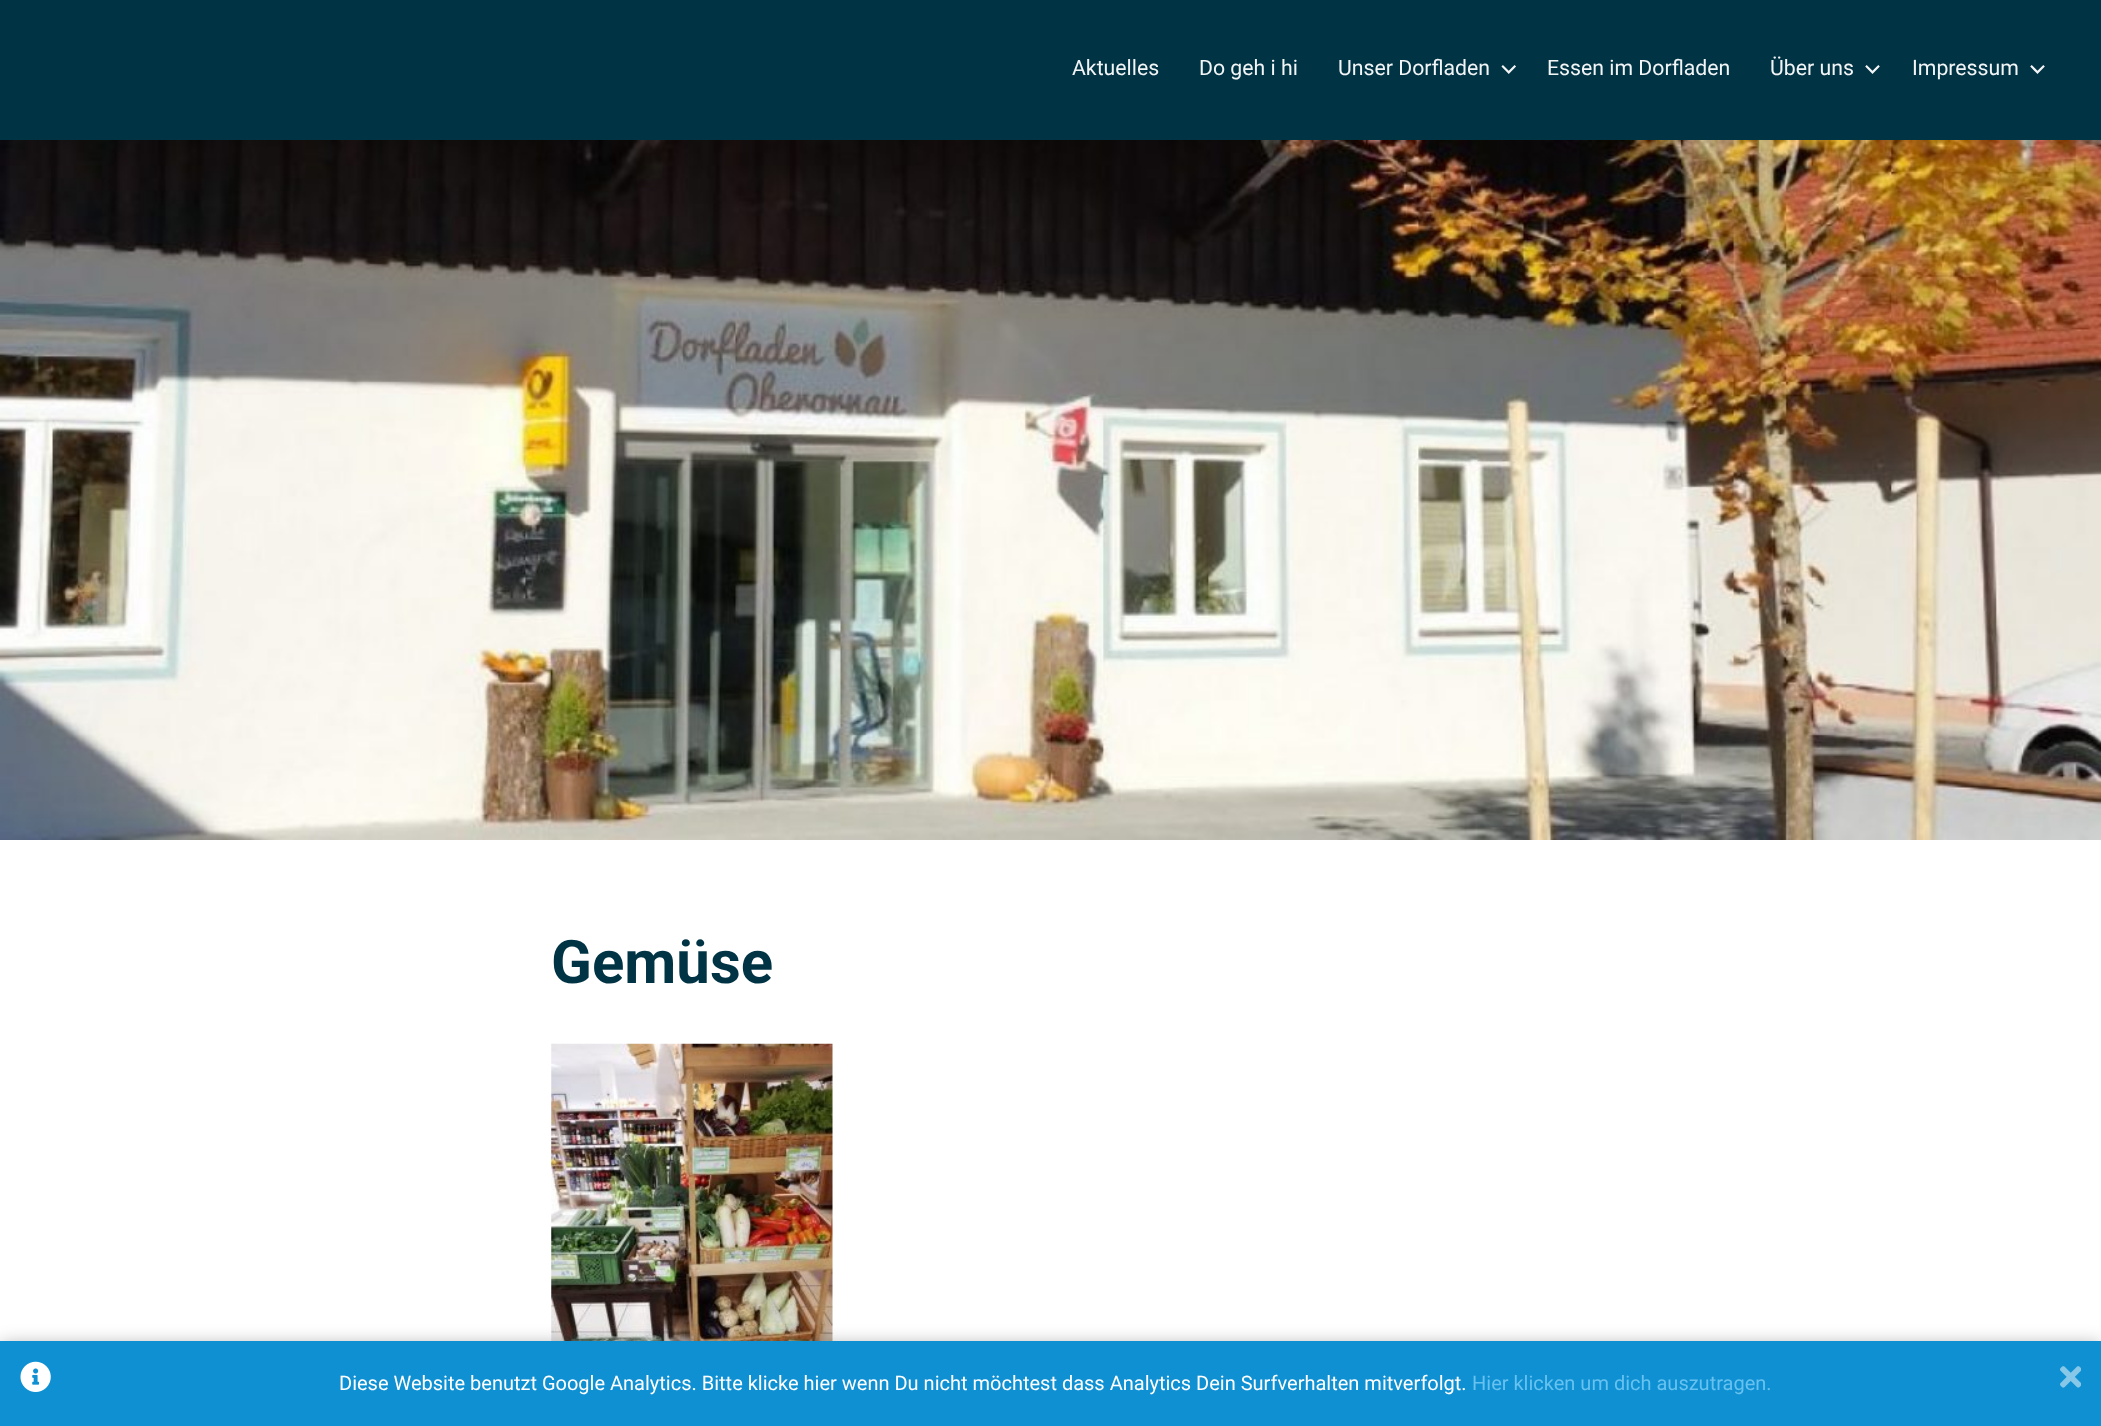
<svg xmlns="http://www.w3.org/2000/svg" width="2101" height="1426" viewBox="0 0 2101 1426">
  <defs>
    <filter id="blur1" x="-50%" y="-200%" width="200%" height="500%"><feGaussianBlur stdDeviation="9.5"/></filter>
  </defs>
  <rect width="100%" height="100%" fill="#ffffff"/>
  <rect x="0" y="0" width="2101" height="140" fill="#003344"/>
  <text x="1072" y="75" font-family="Roboto" font-size="21.25" fill="#f2f5f6">Aktuelles</text>
  <text x="1199" y="75" font-family="Roboto" font-size="21.25" fill="#f2f5f6">Do geh i hi</text>
  <text x="1338" y="75" font-family="Roboto" font-size="21.25" fill="#f2f5f6">Unser Dorfladen</text>
  <image x="1501" y="65" width="15" height="9" href="img1.png"/>
  <text x="1547" y="75" font-family="Roboto" font-size="21.25" fill="#f2f5f6">Essen im Dorfladen</text>
  <text x="1770" y="75" font-family="Roboto" font-size="21.25" fill="#f2f5f6">Über uns</text>
  <image x="1865" y="65" width="15" height="9" href="img2.png"/>
  <text x="1912" y="75" font-family="Roboto" font-size="21.25" fill="#f2f5f6">Impressum</text>
  <image x="2030" y="65" width="15" height="9" href="img3.png"/>
  <image x="0" y="140" width="2101" height="700" href="img4.png"/>
  <text x="551" y="983" font-family="Roboto" font-size="60" font-weight="bold" fill="#003344">Gemüse</text>
  <image x="551" y="1043" width="282" height="298" href="img5.png"/>
  <rect x="0" y="1346" width="2101" height="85" fill="#000000" fill-opacity="0.4" filter="url(#blur1)"/>
  <rect x="0" y="1341" width="2101" height="85" fill="#0e90d2"/>
  <image x="20" y="1361" width="31" height="31" href="img6.png"/>
  <text x="339" y="1390" font-family="Roboto" font-size="20" fill="#ffffff">Diese Website benutzt Google Analytics. Bitte klicke hier wenn Du nicht möchtest dass Analytics Dein Surfverhalten mitverfolgt.</text>
  <text x="1472" y="1390" font-family="Roboto" font-size="20" fill="#67c2f0">Hier klicken um dich auszutragen.</text>
  <image x="2060" y="1366" width="21" height="22" href="img7.png"/>
</svg>
